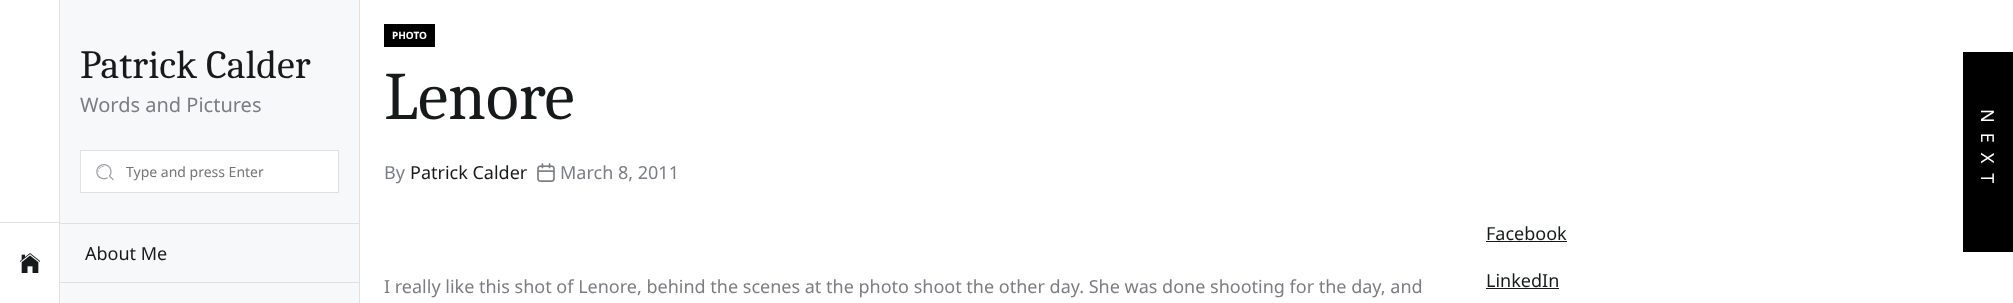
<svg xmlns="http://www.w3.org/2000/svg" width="2013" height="303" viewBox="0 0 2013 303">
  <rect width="100%" height="100%" fill="#ffffff"/>
  <rect x="59" y="0" width="1" height="303" fill="#e0e0e0"/>
  <rect x="0" y="222" width="59" height="1" fill="#e0e0e0"/>
  <image x="20" y="253" width="20" height="20" href="img1.png"/>
  <rect x="60" y="0" width="299" height="303" fill="#f6f8f9"/>
  <rect x="359" y="0" width="1" height="303" fill="#e0e0e0"/>
  <text x="80" y="78" font-family="Caladea" font-size="40" fill="#171a1b">Patrick Calder</text>
  <text x="80" y="112" font-family="Noto Sans" font-size="20" fill="#7a7e83">Words and Pictures</text>
  <rect x="80.5" y="150.5" width="258" height="42" fill="#ffffff" stroke="#e0e0e0"/>
  <image x="96" y="164" width="18" height="17" href="img2.png"/>
  <text x="126" y="177" font-family="Noto Sans" font-size="14" fill="#757575">Type and press Enter</text>
  <rect x="60" y="223" width="299" height="1" fill="#e0e0e0"/>
  <text x="85" y="260" font-family="Noto Sans" font-size="18" fill="#171a1b">About Me</text>
  <rect x="60" y="282" width="299" height="1" fill="#e0e0e0"/>
  <rect x="384" y="24" width="51" height="23" fill="#000000"/>
  <text x="392" y="39" font-family="Noto Sans" font-size="10" font-weight="bold" fill="#ffffff">PHOTO</text>
  <text x="384" y="119" font-family="Caladea" font-size="68" fill="#171a1b">Lenore</text>
  <text x="384" y="179" font-family="Noto Sans" font-size="18" fill="#7a7e83">By</text>
  <text x="410" y="179" font-family="Noto Sans" font-size="18" fill="#171a1b">Patrick Calder</text>
  <image x="537" y="163" width="18" height="19" href="img3.png"/>
  <text x="560" y="179" font-family="Noto Sans" font-size="18" fill="#7a7e83">March 8, 2011</text>
  <rect x="1963" y="52" width="50" height="200" fill="#000000"/>
  <text x="1981" y="109" transform="rotate(90 1981 109)" font-family="Noto Sans" font-size="18" letter-spacing="10" fill="#ffffff">NEXT</text>
  <text x="384" y="293" font-family="Noto Sans" font-size="18" fill="#7a7e83">I really like this shot of Lenore, behind the scenes at the photo shoot the other day. She was done shooting for the day, and</text>
  <text x="1486" y="240" font-family="Noto Sans" font-size="18" fill="#171a1b">Facebook</text>
  <rect x="1486" y="241" width="81" height="1" fill="#171a1b"/>
  <text x="1486" y="287" font-family="Noto Sans" font-size="18" fill="#171a1b">LinkedIn</text>
  <rect x="1486" y="288" width="73" height="1" fill="#171a1b"/>
</svg>
